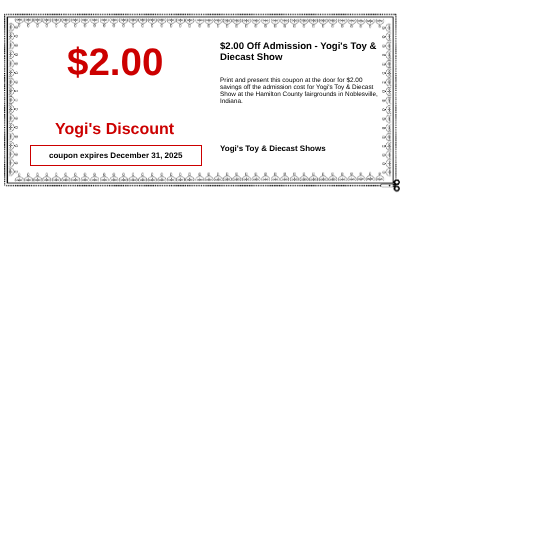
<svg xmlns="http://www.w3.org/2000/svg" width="541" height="552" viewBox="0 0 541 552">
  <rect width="100%" height="100%" fill="#ffffff"/>
  <image x="4" y="13" width="396" height="180" href="img1.png"/>
  <text x="67" y="75" font-family="Liberation Sans" font-size="38.5" font-weight="bold" fill="#cc0000">$2.00</text>
  <text x="220" y="49" font-family="Liberation Sans" font-size="9.6" font-weight="bold" fill="#000000">$2.00 Off Admission - Yogi's Toy &amp;</text>
  <text x="220" y="60" font-family="Liberation Sans" font-size="9.6" font-weight="bold" fill="#000000">Diecast Show</text>
  <text x="220" y="82" font-family="Liberation Sans" font-size="6.4" fill="#000000">Print and present this coupon at the door for $2.00</text>
  <text x="220" y="89" font-family="Liberation Sans" font-size="6.4" fill="#000000">savings off the admission cost for Yogi's Toy &amp; Diecast</text>
  <text x="220" y="96" font-family="Liberation Sans" font-size="6.4" fill="#000000">Show at the Hamilton County fairgrounds in Noblesville,</text>
  <text x="220" y="103" font-family="Liberation Sans" font-size="6.4" fill="#000000">Indiana.</text>
  <text x="55" y="134" font-family="Liberation Sans" font-size="16" font-weight="bold" fill="#cc0000">Yogi's Discount</text>
  <text x="220" y="151" font-family="Liberation Sans" font-size="8" font-weight="bold" fill="#000000">Yogi's Toy &amp; Diecast Shows</text>
  <rect x="30.5" y="145.5" width="171" height="20" fill="none" stroke="#cc0000"/>
  <text x="49" y="158" font-family="Liberation Sans" font-size="8" font-weight="bold" fill="#000000">coupon expires December 31, 2025</text>
</svg>
